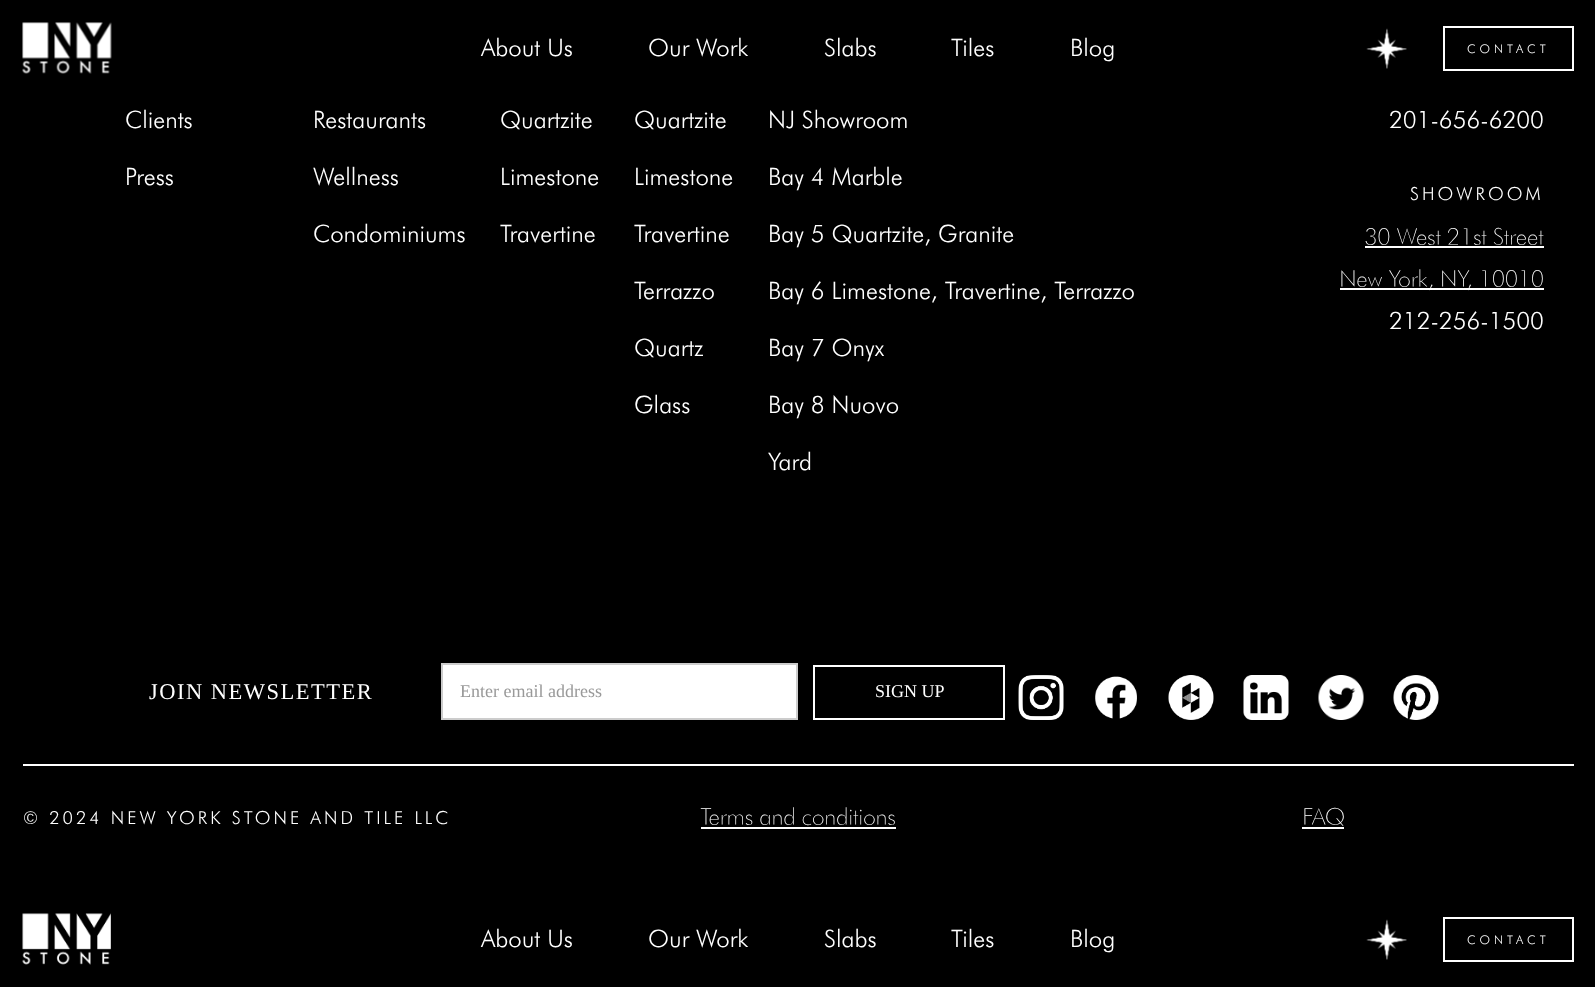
<svg xmlns="http://www.w3.org/2000/svg" width="1595" height="987" viewBox="0 0 1595 987">
  <rect width="100%" height="100%" fill="#000000"/>
  <image x="22" y="22" width="90" height="52" href="img1.png"/>
  <text x="481" y="56" font-family="Futura" font-size="24" fill="#ffffff">About Us</text>
  <text x="648" y="56" font-family="Futura" font-size="24" fill="#ffffff">Our Work</text>
  <text x="824" y="56" font-family="Futura" font-size="24" fill="#ffffff">Slabs</text>
  <text x="951" y="56" font-family="Futura" font-size="24" fill="#ffffff">Tiles</text>
  <text x="1070" y="56" font-family="Futura" font-size="24" fill="#ffffff">Blog</text>
  <image x="1366" y="28" width="41" height="41" href="img2.png"/>
  <rect x="1444" y="27" width="129" height="43" fill="none" stroke="#ffffff" stroke-width="2"/>
  <text x="1467" y="53" font-family="Futura" font-size="12" letter-spacing="4" fill="#ffffff">CONTACT</text>
  <text x="125" y="128" font-family="Futura" font-size="24" fill="#ffffff">Clients</text>
  <text x="125" y="185" font-family="Futura" font-size="24" fill="#ffffff">Press</text>
  <text x="313" y="128" font-family="Futura" font-size="24" fill="#ffffff">Restaurants</text>
  <text x="313" y="185" font-family="Futura" font-size="24" fill="#ffffff">Wellness</text>
  <text x="313" y="242" font-family="Futura" font-size="24" fill="#ffffff">Condominiums</text>
  <text x="500" y="128" font-family="Futura" font-size="24" fill="#ffffff">Quartzite</text>
  <text x="500" y="185" font-family="Futura" font-size="24" fill="#ffffff">Limestone</text>
  <text x="500" y="242" font-family="Futura" font-size="24" fill="#ffffff">Travertine</text>
  <text x="634" y="128" font-family="Futura" font-size="24" fill="#ffffff">Quartzite</text>
  <text x="634" y="185" font-family="Futura" font-size="24" fill="#ffffff">Limestone</text>
  <text x="634" y="242" font-family="Futura" font-size="24" fill="#ffffff">Travertine</text>
  <text x="634" y="299" font-family="Futura" font-size="24" fill="#ffffff">Terrazzo</text>
  <text x="634" y="356" font-family="Futura" font-size="24" fill="#ffffff">Quartz</text>
  <text x="634" y="413" font-family="Futura" font-size="24" fill="#ffffff">Glass</text>
  <text x="768" y="128" font-family="Futura" font-size="24" fill="#ffffff">NJ Showroom</text>
  <text x="768" y="185" font-family="Futura" font-size="24" fill="#ffffff">Bay 4 Marble</text>
  <text x="768" y="242" font-family="Futura" font-size="24" fill="#ffffff">Bay 5 Quartzite, Granite</text>
  <text x="768" y="299" font-family="Futura" font-size="24" fill="#ffffff">Bay 6 Limestone, Travertine, Terrazzo</text>
  <text x="768" y="356" font-family="Futura" font-size="24" fill="#ffffff">Bay 7 Onyx</text>
  <text x="768" y="413" font-family="Futura" font-size="24" fill="#ffffff">Bay 8 Nuovo</text>
  <text x="768" y="470" font-family="Futura" font-size="24" fill="#ffffff">Yard</text>
  <text x="1389" y="128" font-family="Futura" font-size="24" fill="#ffffff">201-656-6200</text>
  <text x="1410" y="200" font-family="Futura" font-size="18" letter-spacing="3" fill="#ffffff">SHOWROOM</text>
  <text x="1364" y="245" font-family="Futura" font-size="24" font-weight="100" fill="#ffffff">30 West 21st Street</text>
  <rect x="1365" y="246" width="179" height="2" fill="#ffffff"/>
  <rect x="1340" y="288" width="204" height="2" fill="#ffffff"/>
  <text x="1339" y="287" font-family="Futura" font-size="24" font-weight="100" fill="#ffffff">New York, NY, 10010</text>
  <text x="1389" y="329" font-family="Futura" font-size="24" fill="#ffffff">212-256-1500</text>
  <text x="149" y="699" font-family="Liberation Serif" font-size="22.5" letter-spacing="1.5" fill="#ffffff">JOIN NEWSLETTER</text>
  <rect x="442" y="664" width="355" height="55" fill="#ffffff" stroke="#cccccc" stroke-width="2"/>
  <text x="460" y="697" font-family="Liberation Serif" font-size="18" fill="#999999">Enter email address</text>
  <rect x="814" y="666" width="190" height="53" fill="none" stroke="#ffffff" stroke-width="2"/>
  <text x="875" y="697" font-family="Liberation Serif" font-size="18" fill="#ffffff">SIGN UP</text>
  <image x="1018" y="675" width="46" height="45" href="img3.png"/>
  <image x="1095" y="676" width="42" height="43" href="img4.png"/>
  <image x="1168" y="675" width="46" height="45" href="img5.png"/>
  <image x="1243" y="675" width="46" height="45" href="img6.png"/>
  <image x="1318" y="675" width="46" height="45" href="img7.png"/>
  <image x="1393" y="675" width="46" height="45" href="img8.png"/>
  <rect x="23" y="764" width="1551" height="2" fill="#ffffff"/>
  <text x="23" y="824" font-family="Futura" font-size="18" letter-spacing="3" fill="#ffffff">© 2024 NEW YORK STONE AND TILE LLC</text>
  <text x="700" y="825" font-family="Futura" font-size="24" font-weight="100" fill="#ffffff">Terms and conditions</text>
  <rect x="701" y="827" width="195" height="2" fill="#ffffff"/>
  <text x="1302" y="825" font-family="Futura" font-size="24" font-weight="100" fill="#ffffff">FAQ</text>
  <rect x="1302" y="827" width="42" height="2" fill="#ffffff"/>
  <image x="22" y="913" width="89" height="52" href="img9.png"/>
  <text x="481" y="947" font-family="Futura" font-size="24" fill="#ffffff">About Us</text>
  <text x="648" y="947" font-family="Futura" font-size="24" fill="#ffffff">Our Work</text>
  <text x="824" y="947" font-family="Futura" font-size="24" fill="#ffffff">Slabs</text>
  <text x="951" y="947" font-family="Futura" font-size="24" fill="#ffffff">Tiles</text>
  <text x="1070" y="947" font-family="Futura" font-size="24" fill="#ffffff">Blog</text>
  <image x="1366" y="919" width="41" height="41" href="img2.png"/>
  <rect x="1444" y="918" width="129" height="43" fill="none" stroke="#ffffff" stroke-width="2"/>
  <text x="1467" y="944" font-family="Futura" font-size="12" letter-spacing="4" fill="#ffffff">CONTACT</text>
</svg>
